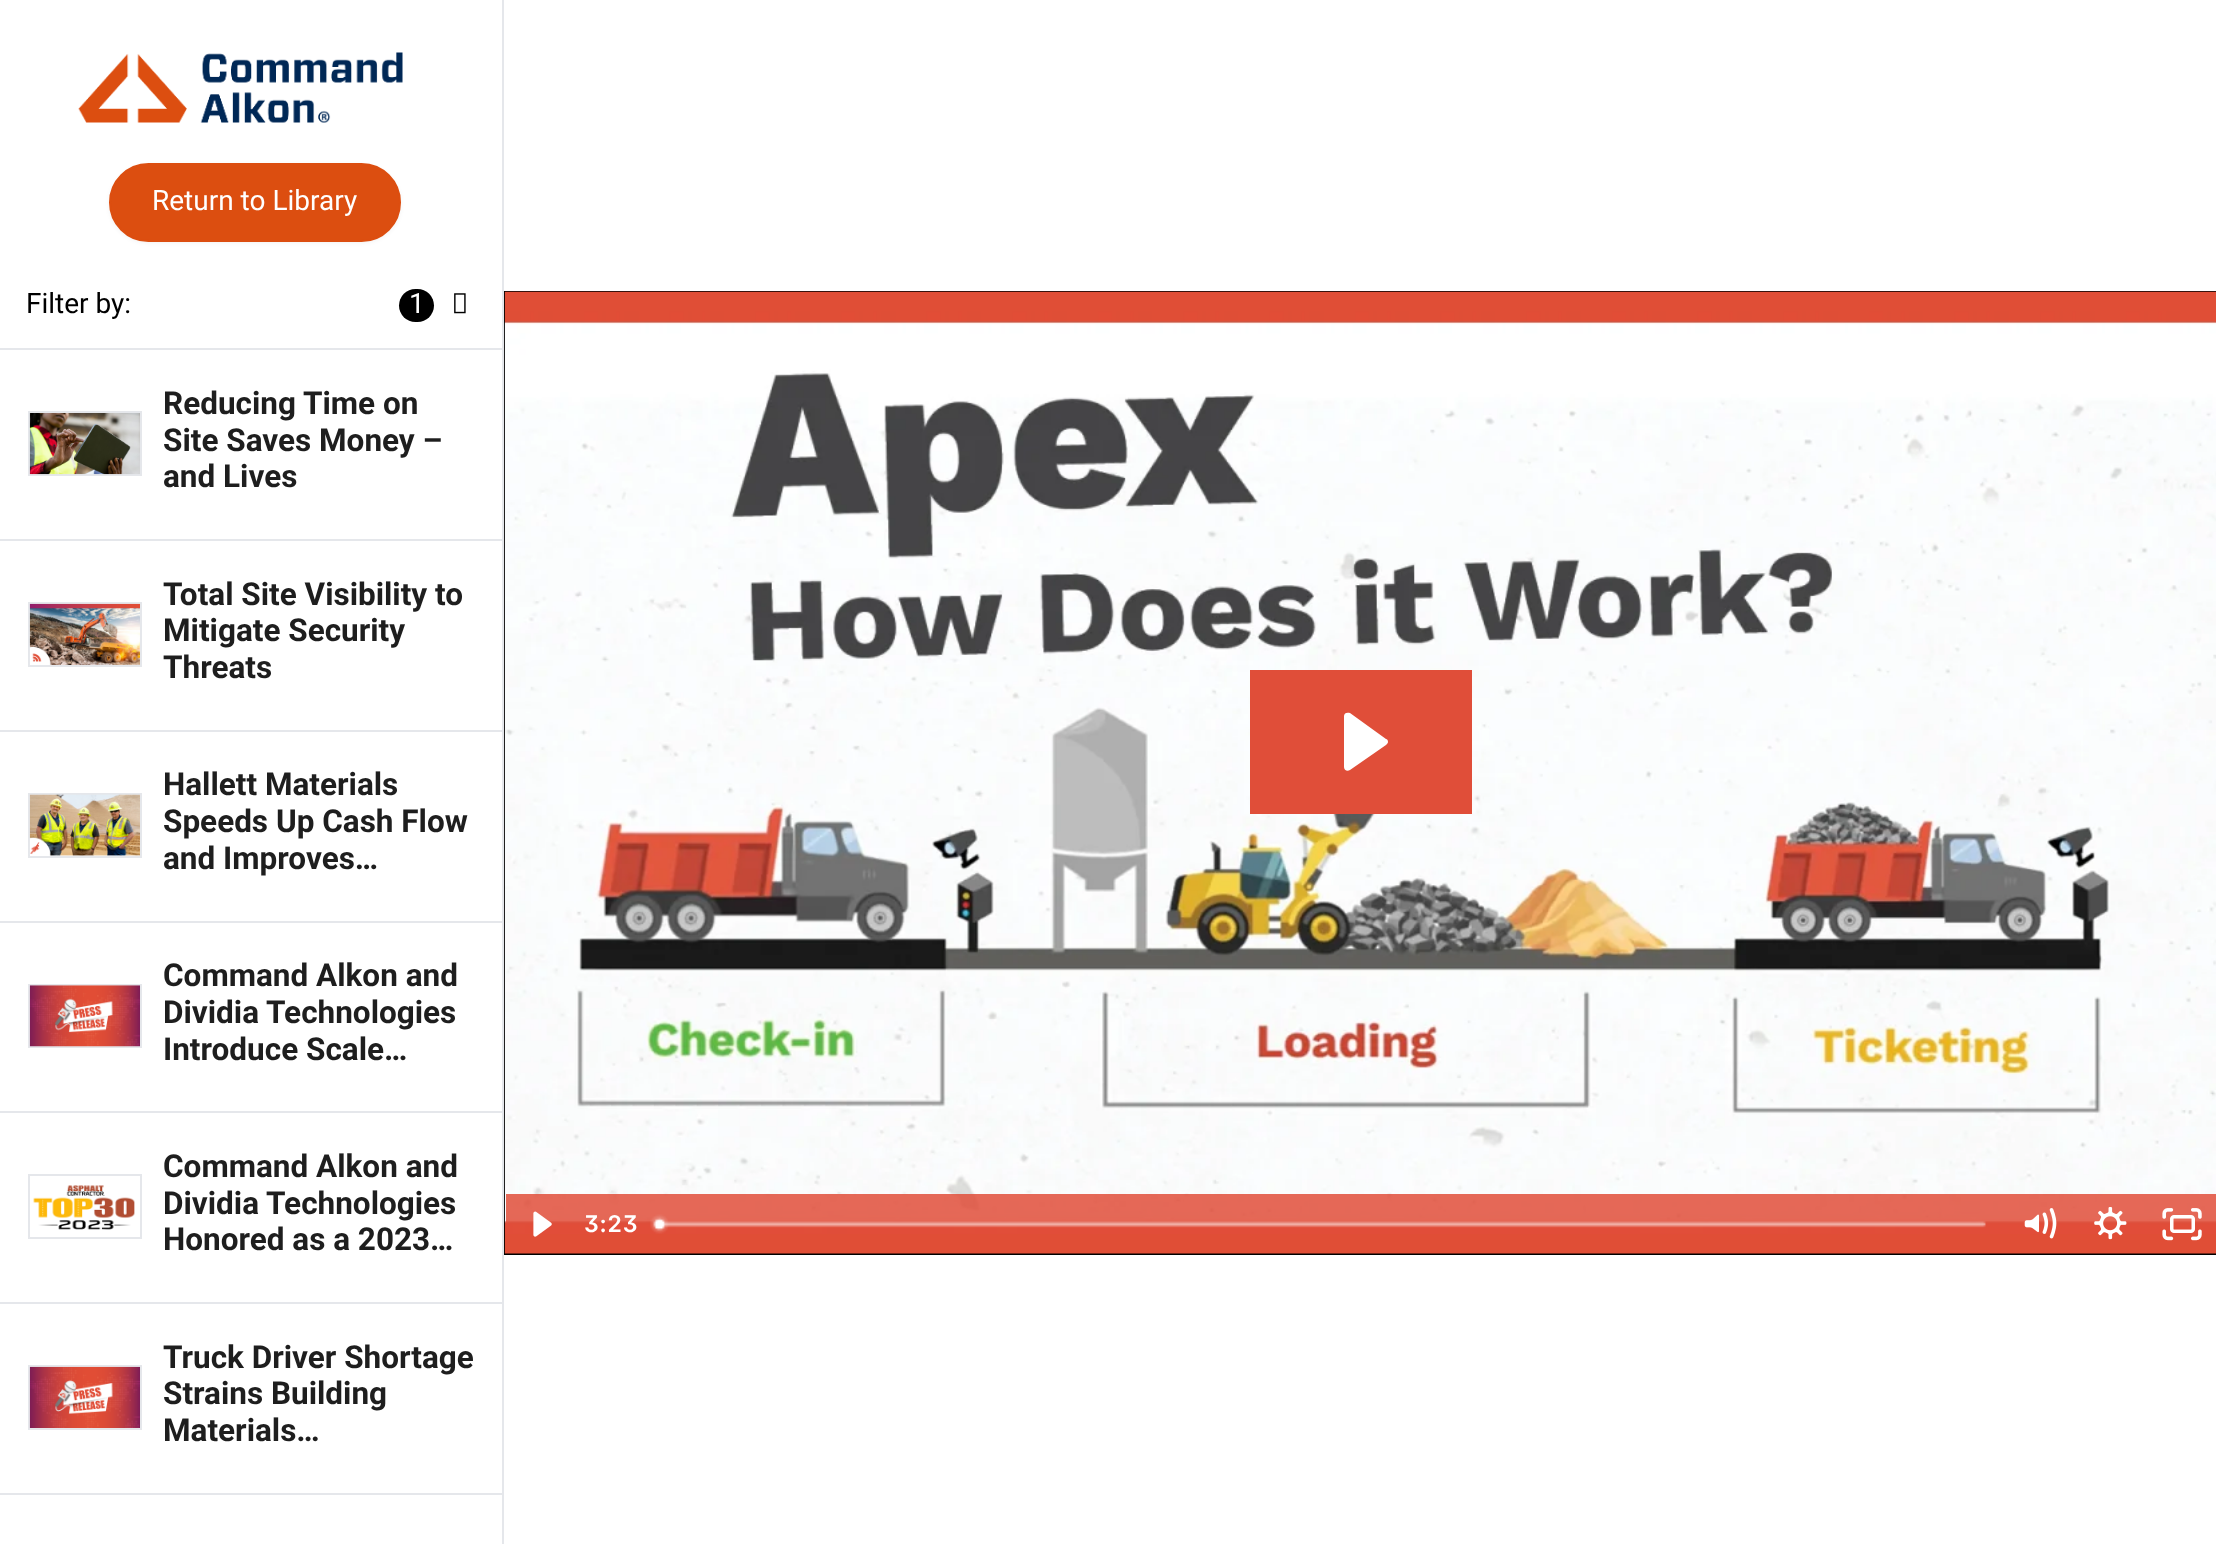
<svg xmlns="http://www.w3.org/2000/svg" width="2216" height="1544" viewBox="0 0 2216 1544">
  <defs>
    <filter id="blur1" x="-50%" y="-200%" width="200%" height="500%"><feGaussianBlur stdDeviation="2"/></filter>
  </defs>
  <rect width="100%" height="100%" fill="#ffffff"/>
  <rect x="502" y="0" width="2" height="1544" fill="#e5e7eb"/>
  <image x="78" y="52" width="325" height="71" href="img1.png"/>
  <rect x="109" y="165" width="292" height="78" rx="39" fill="#000000" fill-opacity="0.05" filter="url(#blur1)"/>
  <rect x="110" y="164" width="290" height="77" rx="38.5" fill="#dc4e10" stroke="#dc4e10" stroke-width="2"/>
  <text x="152" y="210" font-family="Roboto" font-size="28" fill="#ffffff">Return to Library</text>
  <text x="26" y="313" font-family="Roboto" font-size="28" fill="#000000">Filter by:</text>
  <rect x="399" y="289" width="35" height="33" rx="16.5" fill="#000000"/>
  <text x="409" y="313" font-family="Roboto" font-size="28" fill="#ffffff">1</text>
  <image x="454" y="293" width="12" height="21" href="img2.png"/>
  <rect x="0" y="348" width="502" height="2" fill="#e5e7eb"/>
  <rect x="29" y="412" width="112" height="63" fill="none" stroke="#e5e7eb" stroke-width="2"/>
  <image x="29" y="413" width="111" height="62" href="img3.png"/>
  <text x="163" y="414" font-family="Roboto" font-size="31.5" font-weight="bold" fill="#1e1e1e">Reducing Time on</text>
  <text x="163" y="451" font-family="Roboto" font-size="31.5" font-weight="bold" fill="#1e1e1e">Site Saves Money –</text>
  <text x="163" y="487" font-family="Roboto" font-size="31.5" font-weight="bold" fill="#1e1e1e">and Lives</text>
  <rect x="0" y="539" width="502" height="2" fill="#e5e7eb"/>
  <rect x="29" y="603" width="112" height="63" fill="none" stroke="#e5e7eb" stroke-width="2"/>
  <image x="29" y="603" width="111" height="62" href="img4.png"/>
  <text x="163" y="605" font-family="Roboto" font-size="31.5" font-weight="bold" fill="#1e1e1e">Total Site Visibility to</text>
  <text x="163" y="641" font-family="Roboto" font-size="31.5" font-weight="bold" fill="#1e1e1e">Mitigate Security</text>
  <text x="163" y="678" font-family="Roboto" font-size="31.5" font-weight="bold" fill="#1e1e1e">Threats</text>
  <rect x="0" y="730" width="502" height="2" fill="#e5e7eb"/>
  <rect x="29" y="794" width="112" height="63" fill="none" stroke="#e5e7eb" stroke-width="2"/>
  <image x="29" y="794" width="111" height="62" href="img5.png"/>
  <text x="163" y="795" font-family="Roboto" font-size="31.5" font-weight="bold" fill="#1e1e1e">Hallett Materials</text>
  <text x="163" y="832" font-family="Roboto" font-size="31.5" font-weight="bold" fill="#1e1e1e">Speeds Up Cash Flow</text>
  <text x="163" y="869" font-family="Roboto" font-size="31.5" font-weight="bold" fill="#1e1e1e">and Improves…</text>
  <rect x="0" y="921" width="502" height="2" fill="#e5e7eb"/>
  <rect x="29" y="985" width="112" height="62" fill="none" stroke="#e5e7eb" stroke-width="2"/>
  <image x="29" y="985" width="111" height="62" href="img6.png"/>
  <text x="163" y="986" font-family="Roboto" font-size="31.5" font-weight="bold" fill="#1e1e1e">Command Alkon and</text>
  <text x="163" y="1023" font-family="Roboto" font-size="31.5" font-weight="bold" fill="#1e1e1e">Dividia Technologies</text>
  <text x="163" y="1060" font-family="Roboto" font-size="31.5" font-weight="bold" fill="#1e1e1e">Introduce Scale…</text>
  <rect x="0" y="1111" width="502" height="2" fill="#e5e7eb"/>
  <rect x="29" y="1175" width="112" height="63" fill="none" stroke="#e5e7eb" stroke-width="2"/>
  <image x="33" y="1185" width="102" height="45" href="img7.png"/>
  <text x="163" y="1177" font-family="Roboto" font-size="31.5" font-weight="bold" fill="#1e1e1e">Command Alkon and</text>
  <text x="163" y="1214" font-family="Roboto" font-size="31.5" font-weight="bold" fill="#1e1e1e">Dividia Technologies</text>
  <text x="163" y="1250" font-family="Roboto" font-size="31.5" font-weight="bold" fill="#1e1e1e">Honored as a 2023…</text>
  <rect x="0" y="1302" width="502" height="2" fill="#e5e7eb"/>
  <rect x="29" y="1366" width="112" height="63" fill="none" stroke="#e5e7eb" stroke-width="2"/>
  <image x="29" y="1366" width="111" height="62" href="img8.png"/>
  <text x="163" y="1368" font-family="Roboto" font-size="31.5" font-weight="bold" fill="#1e1e1e">Truck Driver Shortage</text>
  <text x="163" y="1404" font-family="Roboto" font-size="31.5" font-weight="bold" fill="#1e1e1e">Strains Building</text>
  <text x="163" y="1441" font-family="Roboto" font-size="31.5" font-weight="bold" fill="#1e1e1e">Materials…</text>
  <rect x="0" y="1493" width="502" height="2" fill="#e5e7eb"/>
  <rect x="504" y="291" width="1712" height="964" fill="#000000"/>
  <image x="504" y="291" width="1712" height="963" href="img9.png"/>
  <rect x="1250" y="670" width="222" height="144" fill="#e04e39"/>
  <path d="M1350 713C1347 712 1344 713 1344 716V767C1344 770 1347 772 1350 770L1386 745C1387 744 1388 743 1388 742C1388 740 1387 739 1386 739Z" fill="#ffffff" fill-rule="evenodd"/>
  <rect x="506" y="1194" width="1710" height="40" fill="#e04e39" fill-opacity="0.85"/>
  <image x="533" y="1211" width="19" height="26" href="img10.png"/>
  <text x="584" y="1232" font-family="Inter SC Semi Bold" font-size="23" font-weight="600" letter-spacing="1" fill="#ffffff">3:23</text>
  <image x="650" y="1214" width="1336" height="20" href="img11.png"/>
  <image x="2024" y="1208" width="33" height="31" href="img12.png"/>
  <image x="2094" y="1207" width="33" height="33" href="img13.png"/>
  <image x="2162" y="1208" width="40" height="33" href="img14.png"/>
</svg>
